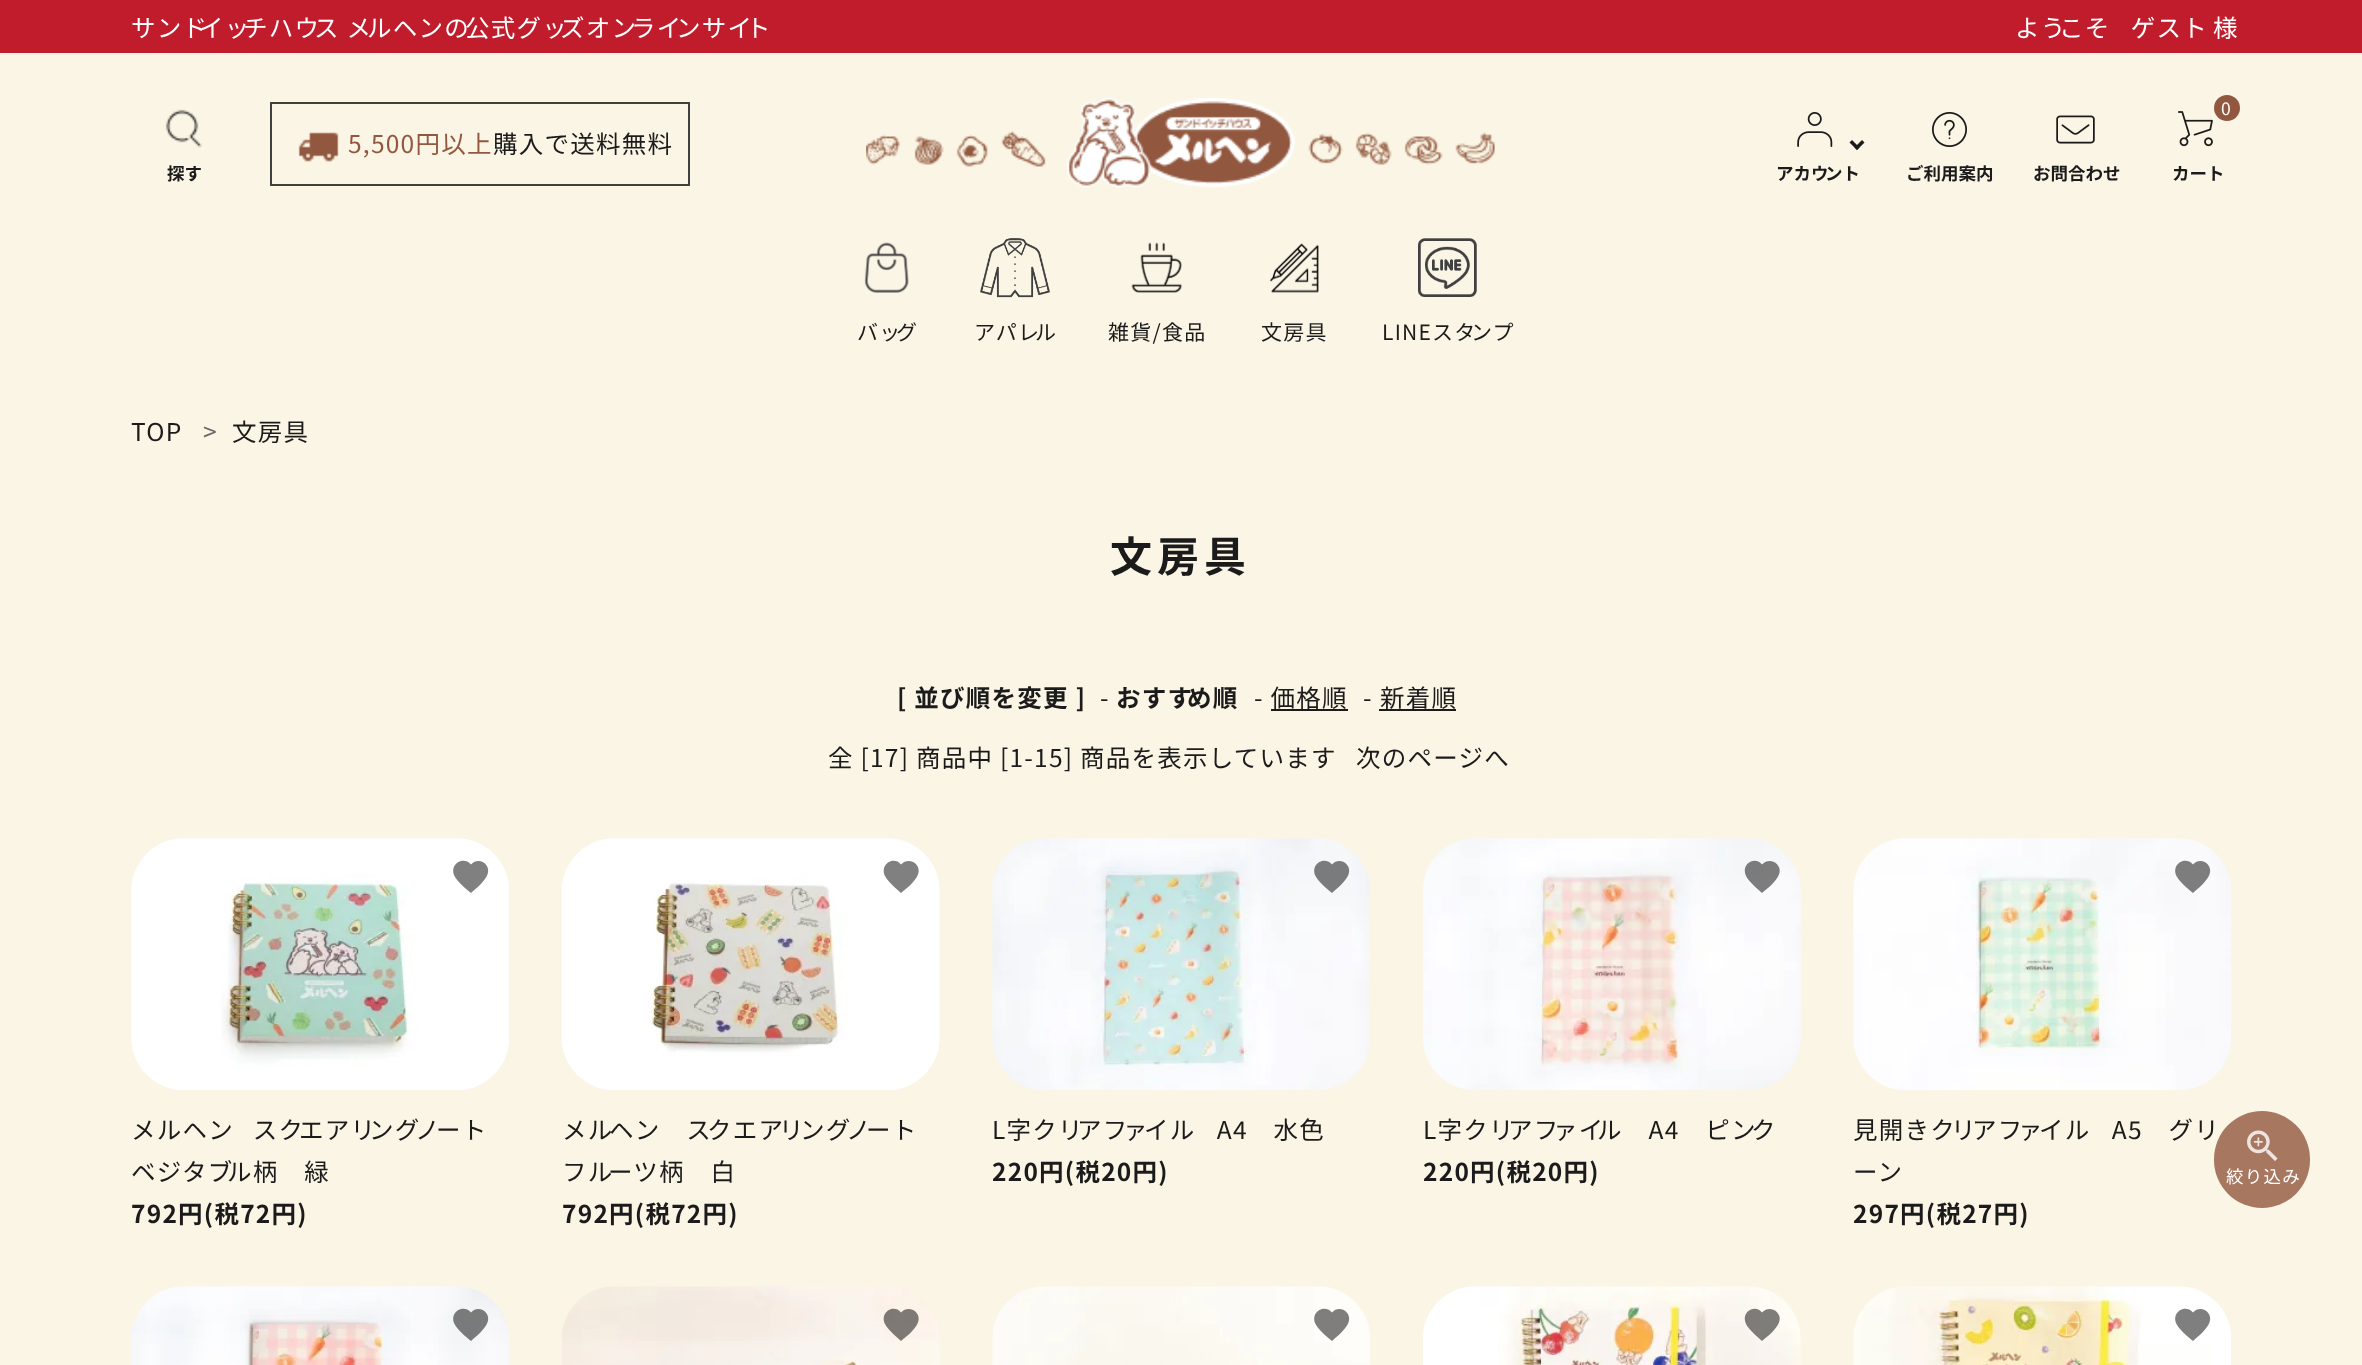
<svg xmlns="http://www.w3.org/2000/svg" width="2362" height="1365" viewBox="0 0 2362 1365">
  <rect width="100%" height="100%" fill="#faf5e5"/>
  <rect x="0" y="0" width="2362" height="53" fill="#c11c2c"/>
  <text x="131" y="37" font-family="Noto Sans JP" font-size="24.5" letter-spacing="1.25" fill="#ffffff">サンド</text>
  <text x="199" y="37" font-family="Noto Sans JP" font-size="24.5" letter-spacing="1.25" fill="#ffffff">イッ</text>
  <text x="243" y="37" font-family="Noto Sans JP" font-size="24.5" letter-spacing="1.25" fill="#ffffff">チハウ</text>
  <text x="314" y="37" font-family="Noto Sans JP" font-size="24.5" letter-spacing="1.25" fill="#ffffff">ス メ</text>
  <text x="367" y="37" font-family="Noto Sans JP" font-size="24.5" letter-spacing="1.25" fill="#ffffff">ルヘンの</text>
  <text x="465" y="37" font-family="Noto Sans JP" font-size="24.5" letter-spacing="1.25" fill="#ffffff">公式グッ</text>
  <text x="560" y="37" font-family="Noto Sans JP" font-size="24.5" letter-spacing="1.25" fill="#ffffff">ズオン</text>
  <text x="631" y="37" font-family="Noto Sans JP" font-size="24.5" letter-spacing="1.25" fill="#ffffff">ライ</text>
  <text x="676" y="37" font-family="Noto Sans JP" font-size="24.5" letter-spacing="1.25" fill="#ffffff">ンサイ</text>
  <text x="746" y="37" font-family="Noto Sans JP" font-size="24.5" letter-spacing="1.25" fill="#ffffff">ト</text>
  <text x="2015" y="37" font-family="Noto Sans JP" font-size="24.5" letter-spacing="1.25" fill="#ffffff">よう</text>
  <text x="2059" y="37" font-family="Noto Sans JP" font-size="24.5" letter-spacing="1.25" fill="#ffffff">こそ</text>
  <text x="2105" y="37" font-family="Noto Sans JP" font-size="24.5" letter-spacing="1.25" fill="#ffffff">　ゲスト</text>
  <text x="2213" y="37" font-family="Noto Sans JP" font-size="24.5" letter-spacing="1.25" fill="#ffffff">様</text>
  <rect x="271" y="103" width="418" height="82" fill="none" stroke="#404040" stroke-width="2"/>
  <image x="298" y="132" width="41" height="30" href="img1.png"/>
  <text x="348" y="153" font-family="Noto Sans JP" font-size="24.5" letter-spacing="1.25" fill="#92583f">5,500円以上</text>
  <text x="493" y="153" font-family="Noto Sans JP" font-size="24.5" letter-spacing="1.25" fill="#1b1b1b">購入で送料無料</text>
  <image x="165" y="109" width="37" height="39" href="img2.png"/>
  <text x="167" y="180" font-family="Noto Sans JP" font-size="17.5" font-weight="bold" fill="#1b1b1b">探す</text>
  <image x="866" y="98" width="629" height="90" href="img3.png"/>
  <image x="1797" y="112" width="36" height="35" href="img4.png"/>
  <path d="M1864.5 142.5L1857 150L1854.5 147.5L1862 140Z" fill="#1b1b1b"/>
  <path d="M1859.5 147.5L1857 150L1849.5 142.5L1852 140Z" fill="#1b1b1b"/>
  <text x="1776" y="180" font-family="Noto Sans JP" font-size="17.5" font-weight="bold" fill="#1b1b1b">アカウ</text>
  <text x="1825" y="180" font-family="Noto Sans JP" font-size="17.5" font-weight="bold" fill="#1b1b1b">ント</text>
  <image x="1932" y="112" width="35" height="35" href="img5.png"/>
  <text x="1906" y="180" font-family="Noto Sans JP" font-size="17.5" font-weight="bold" fill="#1b1b1b">ご利用案内</text>
  <image x="2056" y="115" width="39" height="29" href="img6.png"/>
  <text x="2033" y="180" font-family="Noto Sans JP" font-size="17.5" font-weight="bold" fill="#1b1b1b">お問合わせ</text>
  <circle cx="2227" cy="108" r="13" fill="#92583f"/>
  <text x="2221" y="115" font-family="Noto Sans JP" font-size="17.5" letter-spacing="1.25" fill="#ffffff">0</text>
  <image x="2178" y="111" width="35" height="36" href="img7.png"/>
  <text x="2172" y="180" font-family="Noto Sans JP" font-size="17.5" font-weight="bold" fill="#1b1b1b">カート</text>
  <image x="864" y="242" width="45" height="51" href="img8.png"/>
  <text x="857" y="340" font-family="Noto Sans JP" font-size="21" letter-spacing="1.25" fill="#1b1b1b">バッ</text>
  <text x="896" y="340" font-family="Noto Sans JP" font-size="21" letter-spacing="1.25" fill="#1b1b1b">グ</text>
  <image x="980" y="238" width="70" height="60" href="img9.png"/>
  <text x="974" y="340" font-family="Noto Sans JP" font-size="21" letter-spacing="1.25" fill="#1b1b1b">アパレ</text>
  <text x="1035" y="340" font-family="Noto Sans JP" font-size="21" letter-spacing="1.25" fill="#1b1b1b">ル</text>
  <image x="1131" y="242" width="51" height="51" href="img10.png"/>
  <text x="1108" y="340" font-family="Noto Sans JP" font-size="21" letter-spacing="1.25" fill="#1b1b1b">雑貨/食品</text>
  <image x="1270" y="243" width="49" height="50" href="img11.png"/>
  <text x="1261" y="340" font-family="Noto Sans JP" font-size="21" letter-spacing="1.25" fill="#1b1b1b">文房具</text>
  <image x="1418" y="238" width="59" height="59" href="img12.png"/>
  <text x="1382" y="340" font-family="Noto Sans JP" font-size="21" letter-spacing="1.25" fill="#1b1b1b">LINEスタ</text>
  <text x="1471" y="340" font-family="Noto Sans JP" font-size="21" letter-spacing="1.25" fill="#1b1b1b">ンプ</text>
  <text x="131" y="441" font-family="Noto Sans JP" font-size="24.5" letter-spacing="1.25" fill="#1b1b1b">TOP</text>
  <text x="203" y="441" font-family="Noto Sans JP" font-size="24.5" letter-spacing="1.25" fill="#666666">&gt;</text>
  <text x="232" y="441" font-family="Noto Sans JP" font-size="24.5" letter-spacing="1.25" fill="#1b1b1b">文房具</text>
  <text x="1110" y="572" font-family="Noto Sans JP" font-size="42" font-weight="bold" letter-spacing="5" fill="#1b1b1b">文房具</text>
  <text x="897" y="707" font-family="Noto Sans JP" font-size="24.5" font-weight="bold" letter-spacing="1.25" fill="#1b1b1b">[ 並び順を変更 ]</text>
  <text x="1100" y="707" font-family="Noto Sans JP" font-size="24.5" letter-spacing="1.25" fill="#1b1b1b">-</text>
  <text x="1116" y="707" font-family="Noto Sans JP" font-size="24.5" font-weight="bold" letter-spacing="1.25" fill="#1b1b1b">おすす</text>
  <text x="1187" y="707" font-family="Noto Sans JP" font-size="24.5" font-weight="bold" letter-spacing="1.25" fill="#1b1b1b">め順</text>
  <text x="1254" y="707" font-family="Noto Sans JP" font-size="24.5" letter-spacing="1.25" fill="#1b1b1b">- 価格順</text>
  <text x="1363" y="707" font-family="Noto Sans JP" font-size="24.5" letter-spacing="1.25" fill="#1b1b1b">-</text>
  <rect x="1379" y="709" width="77" height="2" fill="#1b1b1b"/>
  <text x="1380" y="707" font-family="Noto Sans JP" font-size="24.5" letter-spacing="1.25" fill="#1b1b1b">新着順</text>
  <rect x="1271" y="709" width="77" height="2" fill="#1b1b1b"/>
  <text x="828" y="767" font-family="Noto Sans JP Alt" font-size="24.5" letter-spacing="1.25" fill="#1b1b1b">全 [17] 商品中 [1-15] 商品を表示しています</text>
  <text x="1356" y="767" font-family="Noto Sans JP" font-size="24.5" letter-spacing="1.25" fill="#1b1b1b">次のページへ</text>
  <image x="131" y="838" width="378" height="252" href="img13.png"/>
  <path d="M471 893C465.5 888.5 457.5 882 454.5 876C449 864.5 463 855.5 471 864.5C478 856 491.5 864 487.5 874.5C484.5 882 476.5 888 471 893Z" fill="#808080"/>
  <text x="131" y="1139" font-family="Noto Sans JP" font-size="24.5" letter-spacing="1.25" fill="#1b1b1b">メルヘン</text>
  <text x="227" y="1139" font-family="Noto Sans JP" font-size="24.5" letter-spacing="1.25" fill="#1b1b1b">　スク</text>
  <text x="299" y="1139" font-family="Noto Sans JP" font-size="24.5" letter-spacing="1.25" fill="#1b1b1b">エアリ</text>
  <text x="369" y="1139" font-family="Noto Sans JP" font-size="24.5" letter-spacing="1.25" fill="#1b1b1b">ング</text>
  <text x="415" y="1139" font-family="Noto Sans JP" font-size="24.5" letter-spacing="1.25" fill="#1b1b1b">ノ</text>
  <text x="436" y="1139" font-family="Noto Sans JP" font-size="24.5" letter-spacing="1.25" fill="#1b1b1b">ート</text>
  <text x="131" y="1181" font-family="Noto Sans JP" font-size="24.5" letter-spacing="1.25" fill="#1b1b1b">ベジタブ</text>
  <text x="227" y="1181" font-family="Noto Sans JP" font-size="24.5" letter-spacing="1.25" fill="#1b1b1b">ル柄　緑</text>
  <text x="131" y="1223" font-family="Noto Sans JP" font-size="24.5" font-weight="bold" letter-spacing="1.25" fill="#1b1b1b">792円(税72円)</text>
  <image x="562" y="838" width="378" height="252" href="img14.png"/>
  <path d="M901 893C896 888.5 888 882 885 876C879.5 864.5 893.5 855.5 901 864.5C908.5 856 922 864 918 874.5C915 882 907 888 901 893Z" fill="#808080"/>
  <text x="562" y="1139" font-family="Noto Sans JP" font-size="24.5" letter-spacing="1.25" fill="#1b1b1b">メル</text>
  <text x="609" y="1139" font-family="Noto Sans JP" font-size="24.5" letter-spacing="1.25" fill="#1b1b1b">ヘン　ス</text>
  <text x="707" y="1139" font-family="Noto Sans JP" font-size="24.5" letter-spacing="1.25" fill="#1b1b1b">クエア</text>
  <text x="779" y="1139" font-family="Noto Sans JP" font-size="24.5" letter-spacing="1.25" fill="#1b1b1b">リ</text>
  <text x="800" y="1139" font-family="Noto Sans JP" font-size="24.5" letter-spacing="1.25" fill="#1b1b1b">ング</text>
  <text x="846" y="1139" font-family="Noto Sans JP" font-size="24.5" letter-spacing="1.25" fill="#1b1b1b">ノ</text>
  <text x="866" y="1139" font-family="Noto Sans JP" font-size="24.5" letter-spacing="1.25" fill="#1b1b1b">ート</text>
  <text x="562" y="1181" font-family="Noto Sans JP" font-size="24.5" letter-spacing="1.25" fill="#1b1b1b">フル</text>
  <text x="608" y="1181" font-family="Noto Sans JP" font-size="24.5" letter-spacing="1.25" fill="#1b1b1b">ーツ柄　白</text>
  <text x="562" y="1223" font-family="Noto Sans JP" font-size="24.5" font-weight="bold" letter-spacing="1.25" fill="#1b1b1b">792円(税72円)</text>
  <image x="992" y="838" width="378" height="252" href="img15.png"/>
  <path d="M1332 893C1326.5 888.5 1318.5 882 1315.5 876C1310 864.5 1324 855.5 1332 864.5C1339 856 1352.5 864 1348.5 874.5C1345.5 882 1337.5 888 1332 893Z" fill="#000000" fill-opacity="0.5"/>
  <text x="992" y="1139" font-family="Noto Sans JP" font-size="24.5" letter-spacing="1.25" fill="#1b1b1b">L字クリ</text>
  <text x="1077" y="1139" font-family="Noto Sans JP" font-size="24.5" letter-spacing="1.25" fill="#1b1b1b">アフ</text>
  <text x="1123" y="1139" font-family="Noto Sans JP" font-size="24.5" letter-spacing="1.25" fill="#1b1b1b">ァ</text>
  <text x="1144" y="1139" font-family="Noto Sans JP" font-size="24.5" letter-spacing="1.25" fill="#1b1b1b">イル</text>
  <text x="1191" y="1139" font-family="Noto Sans JP" font-size="24.5" letter-spacing="1.25" fill="#1b1b1b">　A4　水色</text>
  <text x="992" y="1181" font-family="Noto Sans JP" font-size="24.5" font-weight="bold" letter-spacing="1.25" fill="#1b1b1b">220円(税20円)</text>
  <image x="1423" y="838" width="378" height="252" href="img16.png"/>
  <path d="M1762 893C1757 888.5 1749 882 1746 876C1740.5 864.5 1754.5 855.5 1762 864.5C1769.5 856 1783 864 1779 874.5C1776 882 1768 888 1762 893Z" fill="#000000" fill-opacity="0.5"/>
  <text x="1423" y="1139" font-family="Noto Sans JP" font-size="24.5" letter-spacing="1.25" fill="#1b1b1b">L字クリ</text>
  <text x="1508" y="1139" font-family="Noto Sans JP" font-size="24.5" letter-spacing="1.25" fill="#1b1b1b">アフ</text>
  <text x="1553" y="1139" font-family="Noto Sans JP" font-size="24.5" letter-spacing="1.25" fill="#1b1b1b">ァイ</text>
  <text x="1597" y="1139" font-family="Noto Sans JP" font-size="24.5" letter-spacing="1.25" fill="#1b1b1b">ル　A4　ピン</text>
  <text x="1751" y="1139" font-family="Noto Sans JP" font-size="24.5" letter-spacing="1.25" fill="#1b1b1b">ク</text>
  <text x="1423" y="1181" font-family="Noto Sans JP" font-size="24.5" font-weight="bold" letter-spacing="1.25" fill="#1b1b1b">220円(税20円)</text>
  <image x="1853" y="838" width="378" height="252" href="img17.png"/>
  <path d="M2193 893C2187.5 888.5 2179.5 882 2176.5 876C2171 864.5 2185 855.5 2193 864.5C2200 856 2213.5 864 2209.5 874.5C2206.5 882 2198.5 888 2193 893Z" fill="#7d7d7e"/>
  <text x="1853" y="1139" font-family="Noto Sans JP" font-size="24.5" letter-spacing="1.25" fill="#1b1b1b">見開きク</text>
  <text x="1951" y="1139" font-family="Noto Sans JP" font-size="24.5" letter-spacing="1.25" fill="#1b1b1b">リ</text>
  <text x="1972" y="1139" font-family="Noto Sans JP" font-size="24.5" letter-spacing="1.25" fill="#1b1b1b">アフ</text>
  <text x="2018" y="1139" font-family="Noto Sans JP" font-size="24.5" letter-spacing="1.25" fill="#1b1b1b">ァ</text>
  <text x="2039" y="1139" font-family="Noto Sans JP" font-size="24.5" letter-spacing="1.25" fill="#1b1b1b">イル</text>
  <text x="2086" y="1139" font-family="Noto Sans JP" font-size="24.5" letter-spacing="1.25" fill="#1b1b1b">　A5　グリ</text>
  <text x="1853" y="1181" font-family="Noto Sans JP" font-size="24.5" letter-spacing="1.25" fill="#1b1b1b">ーン</text>
  <text x="1853" y="1223" font-family="Noto Sans JP" font-size="24.5" font-weight="bold" letter-spacing="1.25" fill="#1b1b1b">297円(税27円)</text>
  <image x="131" y="1286" width="378" height="79" href="img18.png"/>
  <path d="M471 1341C465.5 1336.5 457.5 1330 454.5 1324C449 1312.5 463 1303.5 471 1312.5C478 1304 491.5 1312 487.5 1322.5C484.5 1330 476.5 1336 471 1341Z" fill="#000000" fill-opacity="0.5"/>
  <image x="562" y="1286" width="378" height="79" href="img19.png"/>
  <path d="M901 1341C896 1336.5 888 1330 885 1324C879.5 1312.5 893.5 1303.5 901 1312.5C908.5 1304 922 1312 918 1322.5C915 1330 907 1336 901 1341Z" fill="#000000" fill-opacity="0.5"/>
  <image x="992" y="1286" width="378" height="79" href="img20.png"/>
  <path d="M1332 1341C1326.5 1336.5 1318.5 1330 1315.5 1324C1310 1312.5 1324 1303.5 1332 1312.5C1339 1304 1352.5 1312 1348.5 1322.5C1345.5 1330 1337.5 1336 1332 1341Z" fill="#000000" fill-opacity="0.5"/>
  <image x="1423" y="1286" width="378" height="79" href="img21.png"/>
  <path d="M1762 1341C1757 1336.5 1749 1330 1746 1324C1740.5 1312.5 1754.5 1303.5 1762 1312.5C1769.5 1304 1783 1312 1779 1322.5C1776 1330 1768 1336 1762 1341Z" fill="#000000" fill-opacity="0.5"/>
  <image x="1853" y="1286" width="378" height="79" href="img22.png"/>
  <path d="M2193 1341C2187.5 1336.5 2179.5 1330 2176.5 1324C2171 1312.5 2185 1303.5 2193 1312.5C2200 1304 2213.5 1312 2209.5 1322.5C2206.5 1330 2198.5 1336 2193 1341Z" fill="#000000" fill-opacity="0.5"/>
  <rect x="2214" y="1111" width="96" height="97" rx="48" fill="#a77760"/>
  <image x="2247" y="1130" width="31" height="31" href="img23.png"/>
  <text x="2226" y="1183" font-family="Noto Sans JP" font-size="17.5" letter-spacing="1.25" fill="#ffffff">絞り込み</text>
</svg>
